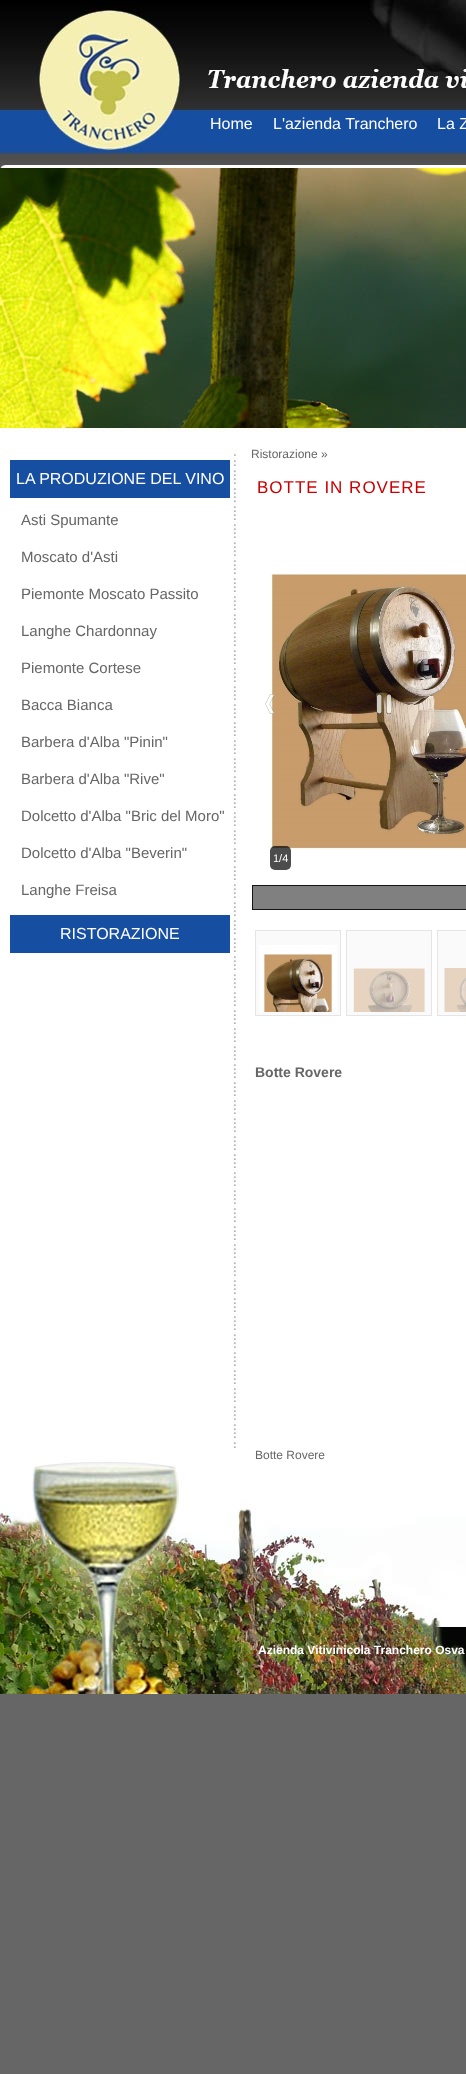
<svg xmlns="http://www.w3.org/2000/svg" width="466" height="2074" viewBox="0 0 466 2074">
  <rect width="100%" height="100%" fill="#666666"/>
  <image x="0" y="458" width="466" height="990" href="img1.png"/>
  <image x="0" y="0" width="466" height="458" href="img2.png"/>
  <image x="0" y="1448" width="466" height="246" href="img3.png"/>
  <text x="210" y="129" font-family="Liberation Sans" font-size="16" fill="#ffffff">Home</text>
  <text x="273" y="129" font-family="Liberation Sans" font-size="16" fill="#ffffff">L'azienda Tranchero</text>
  <text x="437" y="129" font-family="Liberation Sans" font-size="16" fill="#ffffff">La Z</text>
  <image x="0" y="168" width="466" height="260" href="img4.png"/>
  <rect x="10" y="460" width="220" height="38" fill="#164ea1"/>
  <text x="16" y="484" font-family="Liberation Sans" font-size="16" fill="#ffffff">LA PRODUZIONE DEL VINO</text>
  <text x="21" y="525" font-family="Liberation Sans" font-size="15" fill="#666666">Asti Spumante</text>
  <text x="21" y="562" font-family="Liberation Sans" font-size="15" fill="#666666">Moscato d'Asti</text>
  <text x="21" y="599" font-family="Liberation Sans" font-size="15" fill="#666666">Piemonte Moscato Passito</text>
  <text x="21" y="636" font-family="Liberation Sans" font-size="15" fill="#666666">Langhe Chardonnay</text>
  <text x="21" y="673" font-family="Liberation Sans" font-size="15" fill="#666666">Piemonte Cortese</text>
  <text x="21" y="710" font-family="Liberation Sans" font-size="15" fill="#666666">Bacca Bianca</text>
  <text x="21" y="747" font-family="Liberation Sans" font-size="15" fill="#666666">Barbera d'Alba "Pinin"</text>
  <text x="21" y="784" font-family="Liberation Sans" font-size="15" fill="#666666">Barbera d'Alba "Rive"</text>
  <text x="21" y="821" font-family="Liberation Sans" font-size="15" fill="#666666">Dolcetto d'Alba "Bric del Moro"</text>
  <text x="21" y="858" font-family="Liberation Sans" font-size="15" fill="#666666">Dolcetto d'Alba "Beverin"</text>
  <text x="21" y="895" font-family="Liberation Sans" font-size="15" fill="#666666">Langhe Freisa</text>
  <rect x="10" y="915" width="220" height="38" fill="#164ea1"/>
  <text x="60" y="939" font-family="Liberation Sans" font-size="16" fill="#ffffff">RISTORAZIONE</text>
  <text x="251" y="458" font-family="Liberation Sans" font-size="12" fill="#666666">Ristorazione »</text>
  <text x="257" y="493" font-family="Liberation Sans" font-size="17" letter-spacing="1" fill="#cc0000">BOTTE IN ROVERE</text>
  <image x="269" y="573" width="197" height="277" href="img5.png"/>
  <image x="265" y="694" width="9" height="20" href="img6.png"/>
  <image x="376" y="694" width="15" height="20" href="img7.png"/>
  <rect x="270" y="846" width="21" height="24" rx="5" fill="#000000" fill-opacity="0.7"/>
  <text x="273" y="862" font-family="Liberation Sans" font-size="11" fill="#ffffff">1/4</text>
  <rect x="252.5" y="885.5" width="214" height="24" fill="#808080" stroke="#141414"/>
  <rect x="255.5" y="930.5" width="85" height="85" fill="#fafafa" stroke="#e5e5e5"/>
  <image x="259" y="945" width="78" height="67" href="img8.png"/>
  <rect x="346.5" y="930.5" width="85" height="85" fill="#fafafa" stroke="#e5e5e5"/>
  <image x="353" y="968" width="72" height="44" href="img9.png"/>
  <rect x="437.5" y="930.5" width="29" height="85" fill="#fafafa" stroke="#e5e5e5"/>
  <image x="444" y="968" width="22" height="44" href="img10.png"/>
  <text x="255" y="1077" font-family="Liberation Sans" font-size="14" font-weight="bold" fill="#666666">Botte Rovere</text>
  <text x="255" y="1459" font-family="Liberation Sans" font-size="12" fill="#666666">Botte Rovere</text>
  <text x="258" y="1654" font-family="Liberation Sans" font-size="12" font-weight="bold" fill="#ffffff">Azienda Vitivinicola Tranchero Osva</text>
</svg>
